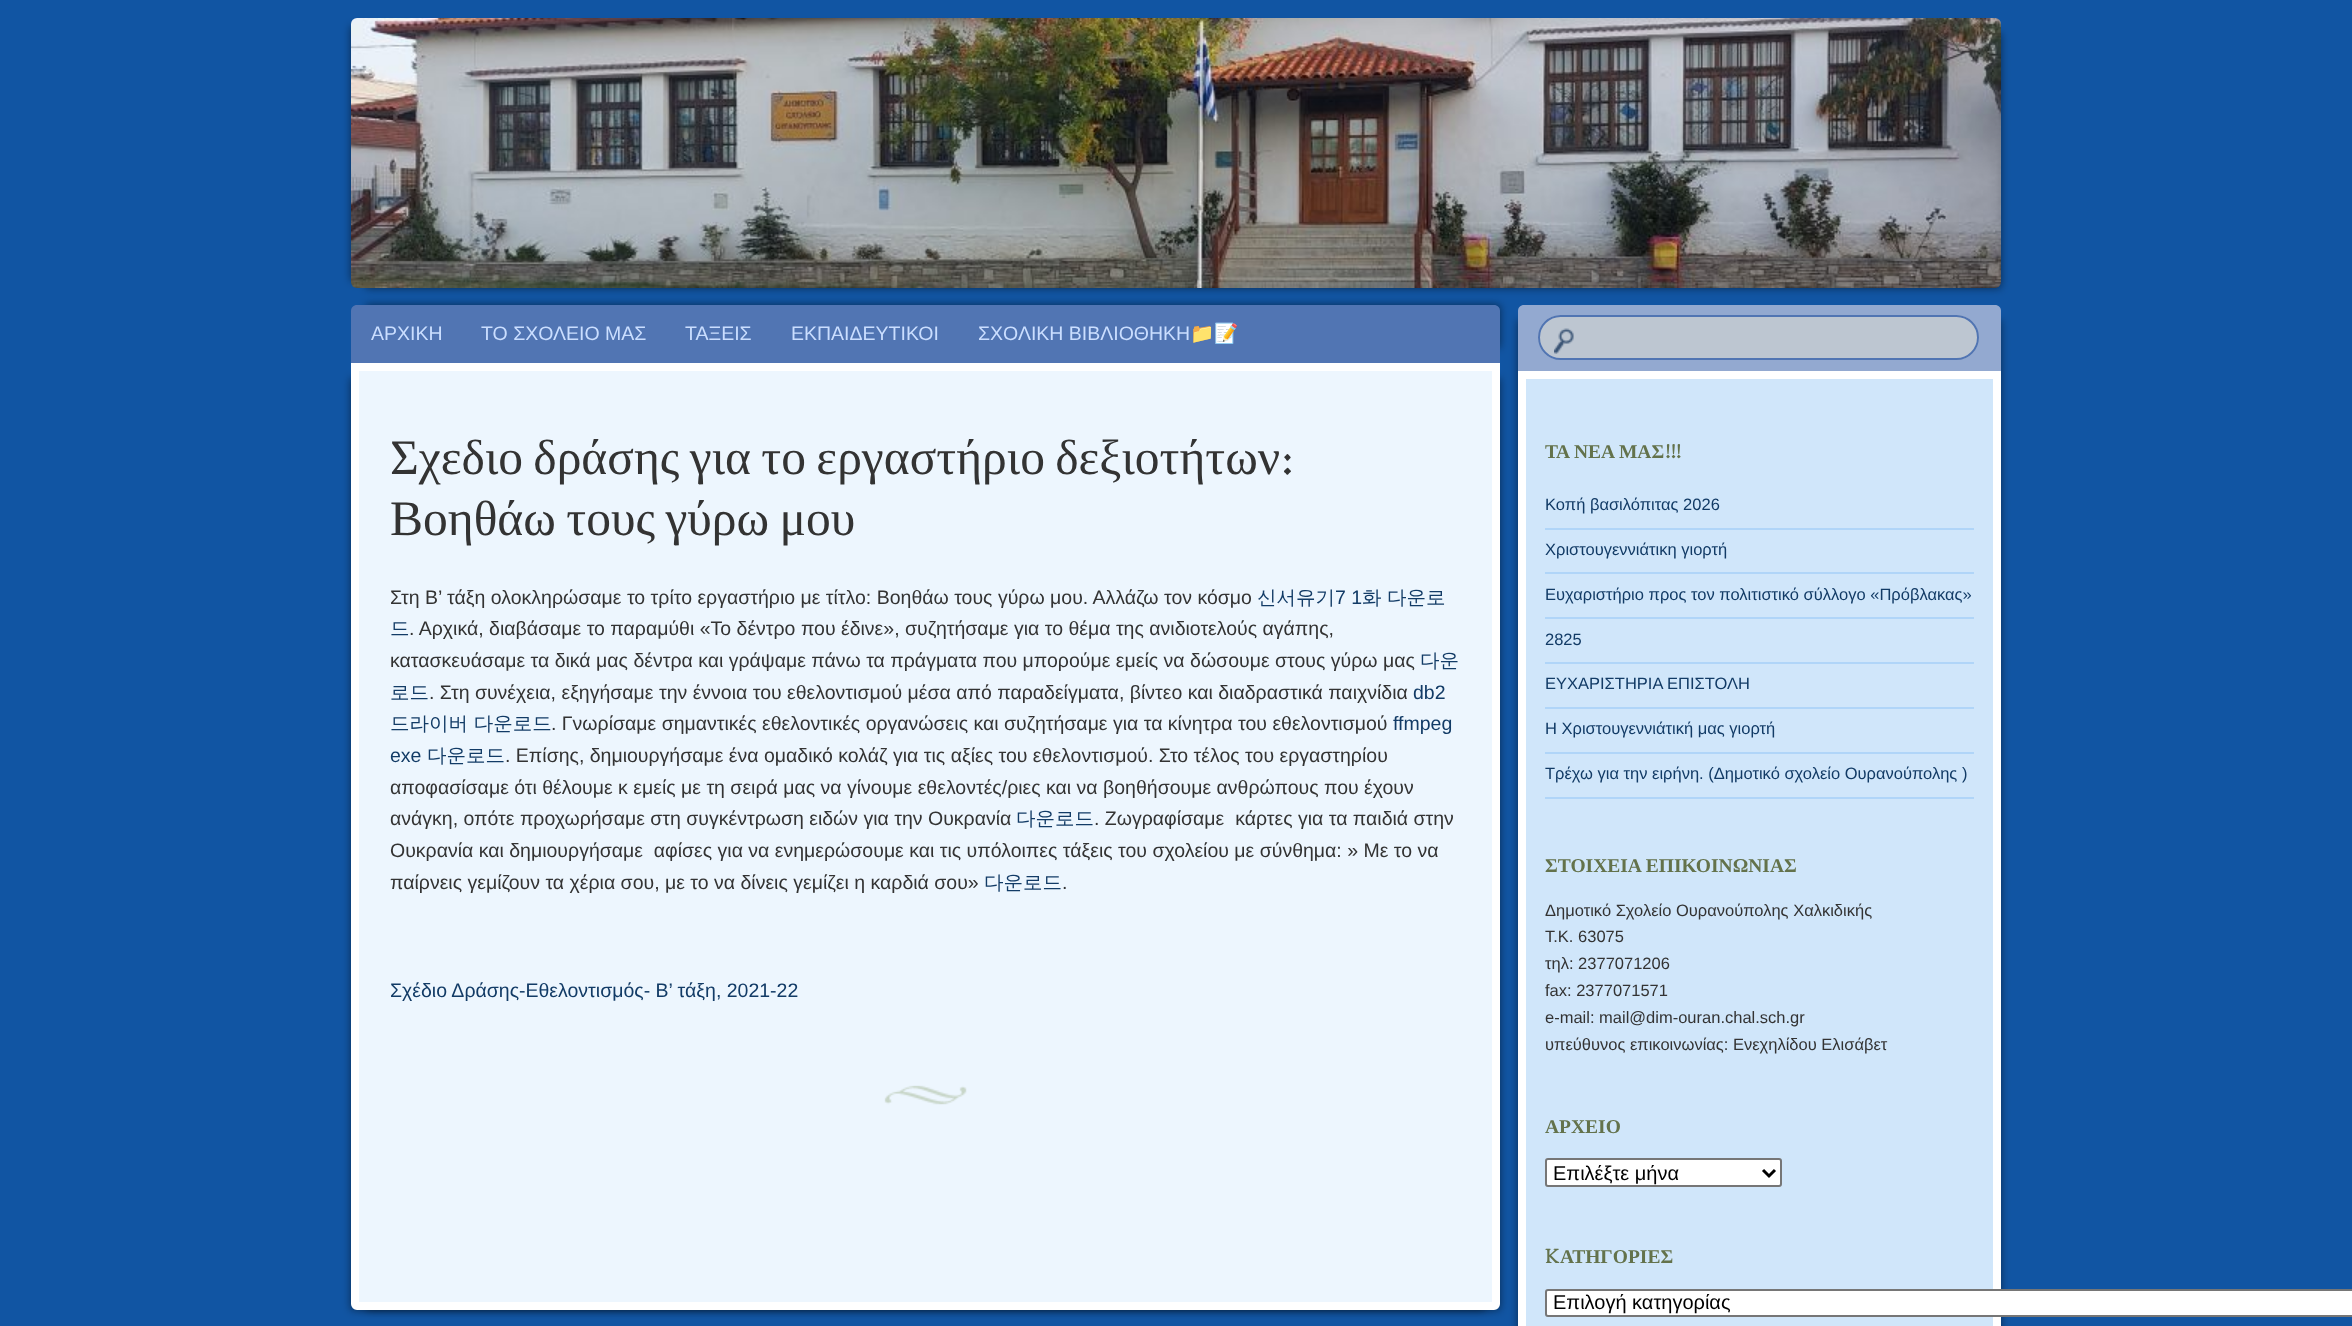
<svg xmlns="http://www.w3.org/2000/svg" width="2352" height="1326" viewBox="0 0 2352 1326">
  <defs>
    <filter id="blur1" x="-50%" y="-200%" width="200%" height="500%"><feGaussianBlur stdDeviation="4"/></filter>
  </defs>
  <rect width="100%" height="100%" fill="#1155a3"/>
  <rect x="351" y="26" width="1635" height="255" fill="#000000" fill-opacity="0.5" filter="url(#blur1)"/>
  <rect x="366" y="33" width="1635" height="255" fill="#000000" fill-opacity="0.5" filter="url(#blur1)"/>
  <image x="351" y="18" width="1650" height="270" href="img1.png"/>
  <rect x="366" y="305" width="1134" height="43" fill="#000000" fill-opacity="0.5" filter="url(#blur1)"/>
  <path d="M357 305H1494C1497.5 305 1500 307.5 1500 311V363H351V311C351 307.5 353.5 305 357 305Z" fill="#5175b3"/>
  <text x="371" y="340" font-family="Liberation Sans" font-size="19.5" fill="#cadeff">ΑΡΧΙΚΗ</text>
  <text x="481" y="340" font-family="Liberation Sans" font-size="19.5" fill="#cadeff">ΤΟ ΣΧΟΛΕΙΟ ΜΑΣ</text>
  <text x="685" y="340" font-family="Liberation Sans" font-size="19.5" fill="#cadeff">ΤΑΞΕΙΣ</text>
  <text x="791" y="340" font-family="Liberation Sans" font-size="19.5" fill="#cadeff">ΕΚΠΑΙΔΕΥΤΙΚΟΙ</text>
  <text x="978" y="340" font-family="Liberation Sans" font-size="19.5" fill="#cadeff">ΣΧΟΛΙΚΗ ΒΙΒΛΙΟΘΗΚΗ</text>
  <text x="1190" y="340" font-family="Noto Color Emoji" font-size="19.5" fill="#cadeff">📁📝</text>
  <rect x="351" y="378" width="1134" height="932" fill="#000000" fill-opacity="0.5" filter="url(#blur1)"/>
  <rect x="366" y="378" width="1134" height="932" fill="#000000" fill-opacity="0.5" filter="url(#blur1)"/>
  <path d="M355 367H1496V1304C1496 1305 1495 1306 1494 1306H357C356 1306 355 1305 355 1304Z" fill="#edf6fe" stroke="#ffffff" stroke-width="8"/>
  <image x="884" y="1085" width="83" height="20" href="img2.png"/>
  <text x="390" y="474" word-spacing="-2" font-family="Liberation Serif" font-size="49.5" fill="#333333">Σχεδιο δράσης για το εργαστήριο δεξιοτήτων</text>
  <text x="1281" y="474" font-family="Sorts Mill Goudy" font-size="49.5" fill="#333333">:</text>
  <text x="390" y="535" word-spacing="-2" font-family="Liberation Serif" font-size="49.5" fill="#333333">Βοηθάω τους γύρω μου</text>
  <text x="390" y="604" font-family="Liberation Sans" font-size="19.5" fill="#333333">Στη Β’ τάξη ολοκληρώσαμε το τρίτο εργαστήριο με τίτλο: Βοηθάω τους γύρω μου. Αλλάζω τον κόσμο</text>
  <text x="1257" y="604" font-family="WenQuanYi Zen Hei" font-size="19.5" font-weight="500" fill="#123b66">신서유기</text>
  <text x="1335" y="604" font-family="Liberation Sans" font-size="19.5" fill="#123b66">7 1</text>
  <text x="1362" y="604" font-family="WenQuanYi Zen Hei" font-size="19.5" font-weight="500" fill="#123b66">화</text>
  <text x="1387" y="604" font-family="WenQuanYi Zen Hei" font-size="19.5" font-weight="500" fill="#123b66">다운로</text>
  <text x="390" y="635" font-family="WenQuanYi Zen Hei" font-size="19.5" font-weight="500" fill="#123b66">드</text>
  <text x="409" y="635" font-family="Liberation Sans" font-size="19.5" fill="#333333">. Αρχικά, διαβάσαμε το παραμύθι «Το δέντρο που έδινε», συζητήσαμε για το θέμα της ανιδιοτελούς αγάπης,</text>
  <text x="390" y="667" font-family="Liberation Sans" font-size="19.5" fill="#333333">κατασκευάσαμε τα δικά μας δέντρα και γράψαμε πάνω τα πράγματα που μπορούμε εμείς να δώσουμε στους γύρω μας</text>
  <text x="1420" y="667" font-family="WenQuanYi Zen Hei" font-size="19.5" font-weight="500" fill="#123b66">다운</text>
  <text x="390" y="699" font-family="WenQuanYi Zen Hei" font-size="19.5" font-weight="500" fill="#123b66">로드</text>
  <text x="429" y="699" font-family="Liberation Sans" font-size="19.5" fill="#333333">. Στη συνέχεια, εξηγήσαμε την έννοια του εθελοντισμού μέσα από παραδείγματα, βίντεο και διαδραστικά παιχνίδια</text>
  <text x="1413" y="699" font-family="Liberation Sans" font-size="19.5" fill="#123b66">db2</text>
  <text x="390" y="730" font-family="WenQuanYi Zen Hei" font-size="19.5" font-weight="500" fill="#123b66">드라이버 다운로드</text>
  <text x="551" y="730" font-family="Liberation Sans" font-size="19.5" fill="#333333">. Γνωρίσαμε σημαντικές εθελοντικές οργανώσεις και συζητήσαμε για τα κίνητρα του εθελοντισμού</text>
  <text x="1393" y="730" font-family="Liberation Sans" font-size="19.5" fill="#123b66">ffmpeg</text>
  <text x="390" y="762" font-family="Liberation Sans" font-size="19.5" fill="#123b66">exe</text>
  <text x="427" y="762" font-family="WenQuanYi Zen Hei" font-size="19.5" font-weight="500" fill="#123b66">다운로드</text>
  <text x="505" y="762" font-family="Liberation Sans" font-size="19.5" fill="#333333">. Επίσης, δημιουργήσαμε ένα ομαδικό κολάζ για τις αξίες του εθελοντισμού. Στο τέλος του εργαστηρίου</text>
  <text x="390" y="794" font-family="Liberation Sans" font-size="19.5" fill="#333333">αποφασίσαμε ότι θέλουμε κ εμείς με τη σειρά μας να γίνουμε εθελοντές/ριες και να βοηθήσουμε ανθρώπους που έχουν</text>
  <text x="390" y="825" font-family="Liberation Sans" font-size="19.5" fill="#333333">ανάγκη, οπότε προχωρήσαμε στη συγκέντρωση ειδών για την Ουκρανία</text>
  <text x="1016" y="825" font-family="WenQuanYi Zen Hei" font-size="19.5" font-weight="500" fill="#123b66">다운로드</text>
  <text x="1094" y="825" font-family="Liberation Sans" font-size="19.5" fill="#333333" xml:space="preserve">. Ζωγραφίσαμε  κάρτες για τα παιδιά στην</text>
  <text x="390" y="857" font-family="Liberation Sans" font-size="19.5" fill="#333333" xml:space="preserve">Ουκρανία και δημιουργήσαμε  αφίσες για να ενημερώσουμε και τις υπόλοιπες τάξεις του σχολείου με σύνθημα: » Με το να</text>
  <text x="390" y="889" font-family="Liberation Sans" font-size="19.5" fill="#333333">παίρνεις γεμίζουν τα χέρια σου, με το να δίνεις γεμίζει η καρδιά σου»</text>
  <text x="984" y="889" font-family="WenQuanYi Zen Hei" font-size="19.5" font-weight="500" fill="#123b66">다운로드</text>
  <text x="1062" y="889" font-family="Liberation Sans" font-size="19.5" fill="#333333">.</text>
  <text x="390" y="997" font-family="Liberation Sans" font-size="19.5" fill="#123b66">Σχέδιο Δράσης-Εθελοντισμός- Β’ τάξη, 2021-22</text>
  <rect x="1518" y="320" width="468" height="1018" fill="#000000" fill-opacity="0.5" filter="url(#blur1)"/>
  <rect x="1533" y="320" width="468" height="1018" fill="#000000" fill-opacity="0.5" filter="url(#blur1)"/>
  <path d="M1524 305H1995C1998.5 305 2001 307.5 2001 311V371H1518V311C1518 307.5 1520.5 305 1524 305Z" fill="#93a9d0"/>
  <rect x="1538" y="315" width="441" height="45" rx="22.5" fill="#bdc6d1"/>
  <image x="1554" y="328" width="20" height="26" href="img3.png"/>
  <rect x="1539" y="316" width="439" height="43" rx="21.5" fill="none" stroke="#5175b3" stroke-width="2"/>
  <rect x="1522" y="375" width="475" height="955" fill="#d0e6fa" stroke="#ffffff" stroke-width="8"/>
  <text x="1545" y="458" font-family="Liberation Serif" font-size="19.5" font-weight="bold" fill="#63724b">ΤΑ ΝΕΑ ΜΑΣ</text>
  <text x="1665" y="458" font-family="Sorts Mill Goudy" font-size="19.5" font-weight="bold" fill="#63724b">!!!</text>
  <rect x="1545" y="528" width="429" height="2" fill="#b0d5f8"/>
  <text x="1545" y="510" font-family="Liberation Sans" font-size="16.5" fill="#123b66">Κοπή βασιλόπιτας 2026</text>
  <rect x="1545" y="572" width="429" height="2" fill="#b0d5f8"/>
  <text x="1545" y="555" font-family="Liberation Sans" font-size="16.5" fill="#123b66">Χριστουγεννιάτικη γιορτή</text>
  <rect x="1545" y="617" width="429" height="2" fill="#b0d5f8"/>
  <text x="1545" y="600" font-family="Liberation Sans" font-size="16.5" fill="#123b66">Ευχαριστήριο προς τον πολιτιστικό σύλλογο «Πρόβλακας»</text>
  <rect x="1545" y="662" width="429" height="2" fill="#b0d5f8"/>
  <text x="1545" y="645" font-family="Liberation Sans" font-size="16.5" fill="#123b66">2825</text>
  <rect x="1545" y="707" width="429" height="2" fill="#b0d5f8"/>
  <text x="1545" y="689" font-family="Liberation Sans" font-size="16.5" fill="#123b66">ΕΥΧΑΡΙΣΤΗΡΙΑ ΕΠΙΣΤΟΛΗ</text>
  <rect x="1545" y="752" width="429" height="2" fill="#b0d5f8"/>
  <text x="1545" y="734" font-family="Liberation Sans" font-size="16.5" fill="#123b66">Η Χριστουγεννιάτική μας γιορτή</text>
  <rect x="1545" y="797" width="429" height="2" fill="#b0d5f8"/>
  <text x="1545" y="779" font-family="Liberation Sans" font-size="16.5" fill="#123b66">Τρέχω για την ειρήνη. (Δημοτικό σχολείο Ουρανούπολης )</text>
  <text x="1545" y="872" font-family="Liberation Serif" font-size="19.5" font-weight="bold" fill="#63724b">ΣΤΟΙΧΕΙΑ ΕΠΙΚΟΙΝΩΝΙΑΣ</text>
  <text x="1545" y="916" font-family="Liberation Sans" font-size="16.5" fill="#333333">Δημοτικό Σχολείο Ουρανούπολης Χαλκιδικής</text>
  <text x="1545" y="942" font-family="Liberation Sans" font-size="16.5" fill="#333333">Τ.Κ. 63075</text>
  <text x="1545" y="969" font-family="Liberation Sans" font-size="16.5" fill="#333333">τηλ: 2377071206</text>
  <text x="1545" y="996" font-family="Liberation Sans" font-size="16.5" fill="#333333">fax: 2377071571</text>
  <text x="1545" y="1023" font-family="Liberation Sans" font-size="16.5" fill="#333333">e-mail: mail@dim-ouran.chal.sch.gr</text>
  <text x="1545" y="1050" font-family="Liberation Sans" font-size="16.5" fill="#333333">υπεύθυνος επικοινωνίας: Ενεχηλίδου Ελισάβετ</text>
  <text x="1545" y="1133" font-family="Liberation Serif" font-size="19.5" font-weight="bold" fill="#63724b">ΑΡΧΕΙΟ</text>
  <rect x="1546" y="1159" width="235" height="27" rx="2" fill="#ffffff" stroke="#767676" stroke-width="2"/>
  <path d="M1763 1170L1769 1176L1775 1170" fill="none" stroke="#000000" stroke-width="3"/>
  <text x="1553" y="1180" font-family="Liberation Sans" font-size="20" fill="#000000">Επιλέξτε μήνα</text>
  <text x="1545" y="1263" font-family="Sorts Mill Goudy" font-size="19.5" font-weight="bold" fill="#63724b">K</text>
  <text x="1560" y="1263" font-family="Liberation Serif" font-size="19.5" font-weight="bold" fill="#63724b">ΑΤΗΓΟΡΙΕΣ</text>
  <rect x="1546" y="1290" width="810" height="26" rx="2" fill="#ffffff" stroke="#767676" stroke-width="2"/>
  <text x="1553" y="1309" font-family="Liberation Sans" font-size="20" fill="#000000">Επιλογή κατηγορίας</text>
</svg>
